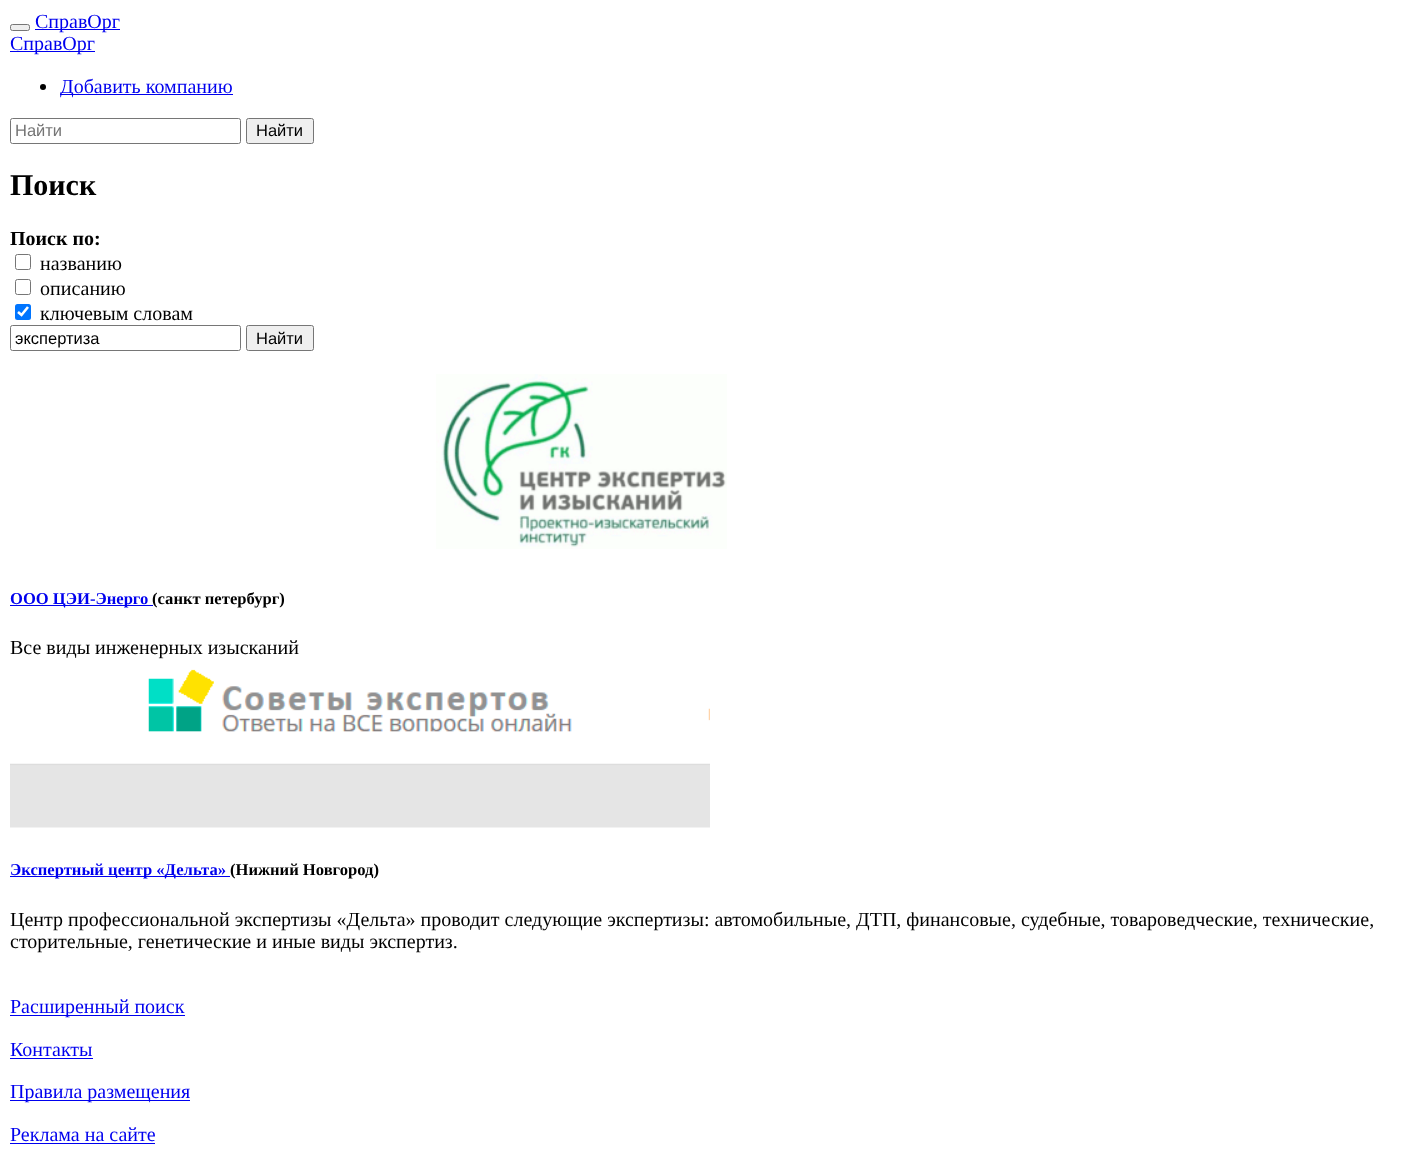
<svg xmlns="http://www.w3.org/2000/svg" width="1403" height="1165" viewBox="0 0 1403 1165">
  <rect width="100%" height="100%" fill="#ffffff"/>
  <rect x="10.5" y="24.5" width="19" height="6" rx="2" fill="#efefef" stroke="#767676"/>
  <rect x="35" y="29" width="85" height="1" fill="#0000ee"/>
  <text x="35" y="28" font-family="Liberation Serif" font-size="20" fill="#0000ee">СправОрг</text>
  <rect x="10" y="51" width="85" height="1" fill="#0000ee"/>
  <text x="10" y="50" font-family="Liberation Serif" font-size="20" fill="#0000ee">СправОрг</text>
  <circle cx="43" cy="87" r="3" fill="#000000"/>
  <rect x="60" y="94" width="173" height="1" fill="#0000ee"/>
  <text x="60" y="93" font-family="Liberation Serif" font-size="20" fill="#0000ee">Добавить компанию</text>
  <rect x="10.5" y="118.5" width="230" height="25" rx="2" fill="none" stroke="#767676"/>
  <text x="15" y="136" font-family="Liberation Sans" font-size="16.5" fill="#757575">Найти</text>
  <rect x="246.5" y="118.5" width="67" height="25" rx="2" fill="#efefef" stroke="#767676"/>
  <text x="256" y="136" font-family="Liberation Sans" font-size="16.5" fill="#000000">Найти</text>
  <text x="10" y="195" font-family="Liberation Serif" font-size="30" font-weight="bold" fill="#000000">Поиск</text>
  <text x="10" y="245" font-family="Liberation Serif" font-size="20" font-weight="bold" fill="#000000">Поиск по:</text>
  <rect x="15.5" y="254.5" width="15" height="15" rx="2" fill="none" stroke="#767676"/>
  <text x="40" y="270" font-family="Liberation Serif" font-size="20" fill="#000000">названию</text>
  <rect x="15.5" y="279.5" width="15" height="15" rx="2" fill="none" stroke="#767676"/>
  <text x="40" y="295" font-family="Liberation Serif" font-size="20" fill="#000000">описанию</text>
  <rect x="15" y="304" width="16" height="16" rx="2.5" fill="#0075ff"/>
  <path d="M18 312L21.5 315L28 307" fill="none" stroke="#ffffff" stroke-width="2.6"/>
  <text x="40" y="320" font-family="Liberation Serif" font-size="20" fill="#000000">ключевым словам</text>
  <rect x="10.5" y="325.5" width="230" height="25" rx="2" fill="none" stroke="#767676"/>
  <text x="15" y="344" font-family="Liberation Sans" font-size="16.5" fill="#000000">экспертиза</text>
  <rect x="246.5" y="325.5" width="67" height="25" rx="2" fill="#efefef" stroke="#767676"/>
  <text x="256" y="344" font-family="Liberation Sans" font-size="16.5" fill="#000000">Найти</text>
  <image x="436" y="374" width="291" height="175" href="img1.png"/>
  <rect x="10" y="605" width="143" height="1" fill="#0000ee"/>
  <text x="10" y="604" font-family="Liberation Serif" font-size="16.6" font-weight="bold" fill="#0000ee">ООО ЦЭИ-Энерго</text>
  <text x="152" y="604" font-family="Liberation Serif" font-size="16.6" font-weight="bold" fill="#000000">(санкт петербург)</text>
  <text x="10" y="654" font-family="Liberation Serif" font-size="20" fill="#000000">Все виды инженерных изысканий</text>
  <image x="10" y="658" width="700" height="170" href="img2.png"/>
  <rect x="10" y="876" width="220" height="1" fill="#0000ee"/>
  <text x="10" y="875" font-family="Liberation Serif" font-size="16.6" font-weight="bold" fill="#0000ee">Экспертный центр «Дельта»</text>
  <text x="230" y="875" font-family="Liberation Serif" font-size="16.6" font-weight="bold" fill="#000000">(Нижний Новгород)</text>
  <text x="10" y="926" font-family="Liberation Serif" font-size="20" fill="#000000">Центр профессиональной экспертизы «Дельта» проводит следующие экспертизы: автомобильные, ДТП, финансовые, судебные, товароведческие, технические,</text>
  <text x="10" y="948" font-family="Liberation Serif" font-size="20" fill="#000000">сторительные, генетические и иные виды экспертиз.</text>
  <rect x="10" y="1015" width="175" height="1" fill="#0000ee"/>
  <text x="10" y="1013" font-family="Liberation Serif" font-size="20" fill="#0000ee">Расширенный поиск</text>
  <text x="10" y="1056" font-family="Liberation Serif" font-size="20" fill="#0000ee">Контакты</text>
  <rect x="10" y="1058" width="83" height="1" fill="#0000ee"/>
  <rect x="10" y="1100" width="180" height="1" fill="#0000ee"/>
  <text x="10" y="1098" font-family="Liberation Serif" font-size="20" fill="#0000ee">Правила размещения</text>
  <text x="10" y="1141" font-family="Liberation Serif" font-size="20" fill="#0000ee">Реклама на сайте</text>
  <rect x="10" y="1143" width="145" height="1" fill="#0000ee"/>
</svg>
